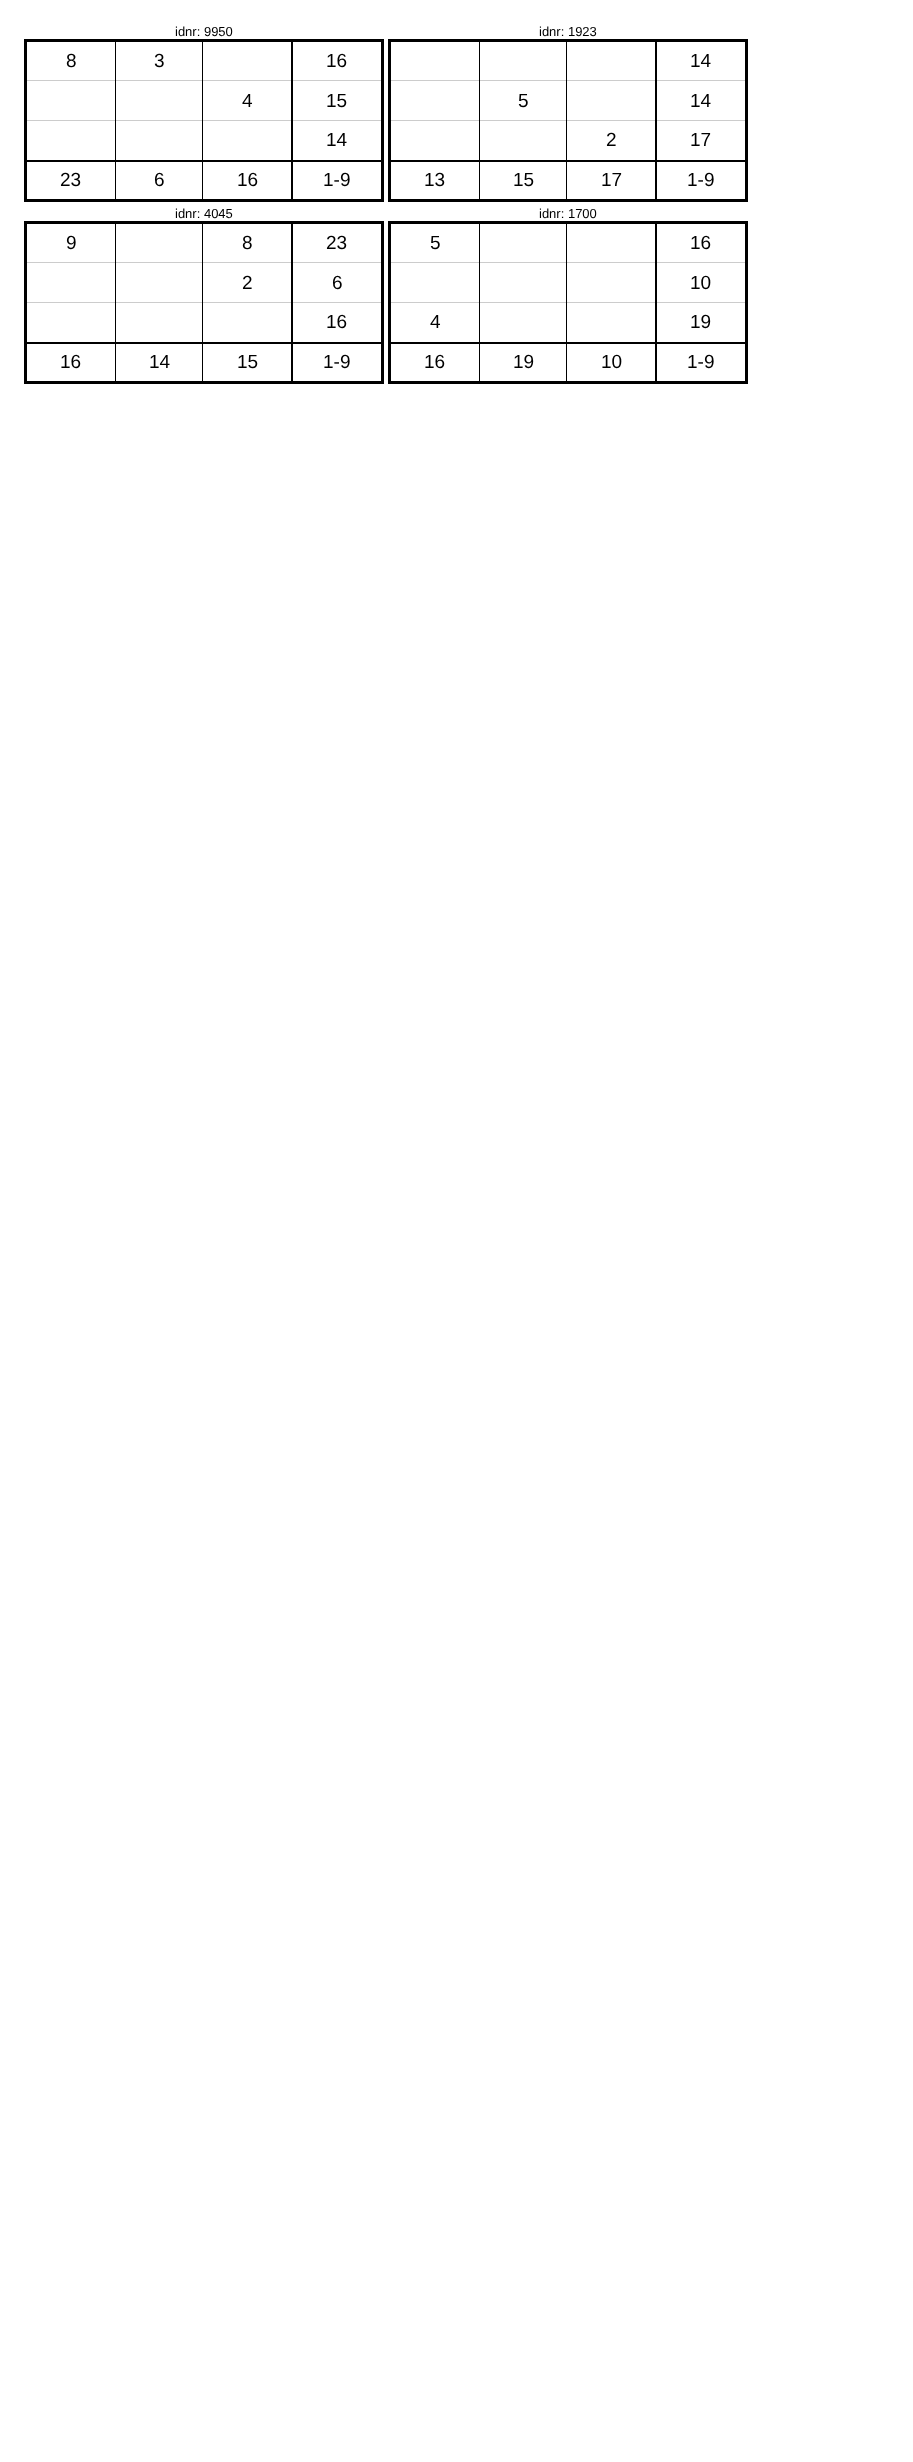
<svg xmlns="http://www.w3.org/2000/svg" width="913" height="2462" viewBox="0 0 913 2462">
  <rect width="100%" height="100%" fill="#ffffff"/>
  <text x="175" y="36" font-family="Liberation Sans" font-size="13" fill="#000000">idnr: 9950</text>
  <rect x="25" y="80" width="358" height="1" fill="#cccccc"/>
  <rect x="25" y="120" width="358" height="1" fill="#cccccc"/>
  <rect x="115" y="160" width="1" height="41" fill="#000000"/>
  <rect x="115" y="120" width="1" height="41" fill="#000000"/>
  <rect x="115" y="40" width="1" height="81" fill="#000000"/>
  <rect x="202" y="160" width="1" height="41" fill="#000000"/>
  <rect x="202" y="120" width="1" height="41" fill="#000000"/>
  <rect x="202" y="40" width="1" height="81" fill="#000000"/>
  <rect x="291" y="160" width="2" height="42" fill="#000000"/>
  <rect x="291" y="160" width="93" height="2" fill="#000000"/>
  <rect x="291" y="40" width="2" height="122" fill="#000000"/>
  <rect x="24" y="39" width="360" height="3" fill="#000000"/>
  <rect x="381" y="39" width="3" height="163" fill="#000000"/>
  <rect x="24" y="199" width="360" height="3" fill="#000000"/>
  <rect x="25" y="160" width="268" height="2" fill="#000000"/>
  <rect x="24" y="39" width="3" height="163" fill="#000000"/>
  <text x="66" y="67" font-family="Liberation Sans" font-size="19" fill="#000000">8</text>
  <text x="154" y="67" font-family="Liberation Sans" font-size="19" fill="#000000">3</text>
  <text x="326" y="67" font-family="Liberation Sans" font-size="19" fill="#000000">16</text>
  <text x="242" y="107" font-family="Liberation Sans" font-size="19" fill="#000000">4</text>
  <text x="326" y="107" font-family="Liberation Sans" font-size="19" fill="#000000">15</text>
  <text x="326" y="146" font-family="Liberation Sans" font-size="19" fill="#000000">14</text>
  <text x="60" y="186" font-family="Liberation Sans" font-size="19" fill="#000000">23</text>
  <text x="154" y="186" font-family="Liberation Sans" font-size="19" fill="#000000">6</text>
  <text x="237" y="186" font-family="Liberation Sans" font-size="19" fill="#000000">16</text>
  <text x="323" y="186" font-family="Liberation Sans" font-size="19" fill="#000000">1-9</text>
  <text x="539" y="36" font-family="Liberation Sans" font-size="13" fill="#000000">idnr: 1923</text>
  <rect x="389" y="80" width="358" height="1" fill="#cccccc"/>
  <rect x="389" y="120" width="358" height="1" fill="#cccccc"/>
  <rect x="479" y="160" width="1" height="41" fill="#000000"/>
  <rect x="479" y="120" width="1" height="41" fill="#000000"/>
  <rect x="479" y="40" width="1" height="81" fill="#000000"/>
  <rect x="566" y="160" width="1" height="41" fill="#000000"/>
  <rect x="566" y="120" width="1" height="41" fill="#000000"/>
  <rect x="566" y="40" width="1" height="81" fill="#000000"/>
  <rect x="655" y="160" width="2" height="42" fill="#000000"/>
  <rect x="655" y="160" width="93" height="2" fill="#000000"/>
  <rect x="655" y="40" width="2" height="122" fill="#000000"/>
  <rect x="388" y="39" width="360" height="3" fill="#000000"/>
  <rect x="745" y="39" width="3" height="163" fill="#000000"/>
  <rect x="388" y="199" width="360" height="3" fill="#000000"/>
  <rect x="389" y="160" width="268" height="2" fill="#000000"/>
  <rect x="388" y="39" width="3" height="163" fill="#000000"/>
  <text x="690" y="67" font-family="Liberation Sans" font-size="19" fill="#000000">14</text>
  <text x="518" y="107" font-family="Liberation Sans" font-size="19" fill="#000000">5</text>
  <text x="690" y="107" font-family="Liberation Sans" font-size="19" fill="#000000">14</text>
  <text x="606" y="146" font-family="Liberation Sans" font-size="19" fill="#000000">2</text>
  <text x="690" y="146" font-family="Liberation Sans" font-size="19" fill="#000000">17</text>
  <text x="424" y="186" font-family="Liberation Sans" font-size="19" fill="#000000">13</text>
  <text x="513" y="186" font-family="Liberation Sans" font-size="19" fill="#000000">15</text>
  <text x="601" y="186" font-family="Liberation Sans" font-size="19" fill="#000000">17</text>
  <text x="687" y="186" font-family="Liberation Sans" font-size="19" fill="#000000">1-9</text>
  <text x="175" y="218" font-family="Liberation Sans" font-size="13" fill="#000000">idnr: 4045</text>
  <rect x="25" y="262" width="358" height="1" fill="#cccccc"/>
  <rect x="25" y="302" width="358" height="1" fill="#cccccc"/>
  <rect x="115" y="342" width="1" height="41" fill="#000000"/>
  <rect x="115" y="302" width="1" height="41" fill="#000000"/>
  <rect x="115" y="222" width="1" height="81" fill="#000000"/>
  <rect x="202" y="342" width="1" height="41" fill="#000000"/>
  <rect x="202" y="302" width="1" height="41" fill="#000000"/>
  <rect x="202" y="222" width="1" height="81" fill="#000000"/>
  <rect x="291" y="342" width="2" height="42" fill="#000000"/>
  <rect x="291" y="342" width="93" height="2" fill="#000000"/>
  <rect x="291" y="222" width="2" height="122" fill="#000000"/>
  <rect x="24" y="221" width="360" height="3" fill="#000000"/>
  <rect x="381" y="221" width="3" height="163" fill="#000000"/>
  <rect x="24" y="381" width="360" height="3" fill="#000000"/>
  <rect x="25" y="342" width="268" height="2" fill="#000000"/>
  <rect x="24" y="221" width="3" height="163" fill="#000000"/>
  <text x="66" y="249" font-family="Liberation Sans" font-size="19" fill="#000000">9</text>
  <text x="242" y="249" font-family="Liberation Sans" font-size="19" fill="#000000">8</text>
  <text x="326" y="249" font-family="Liberation Sans" font-size="19" fill="#000000">23</text>
  <text x="242" y="289" font-family="Liberation Sans" font-size="19" fill="#000000">2</text>
  <text x="332" y="289" font-family="Liberation Sans" font-size="19" fill="#000000">6</text>
  <text x="326" y="328" font-family="Liberation Sans" font-size="19" fill="#000000">16</text>
  <text x="60" y="368" font-family="Liberation Sans" font-size="19" fill="#000000">16</text>
  <text x="149" y="368" font-family="Liberation Sans" font-size="19" fill="#000000">14</text>
  <text x="237" y="368" font-family="Liberation Sans" font-size="19" fill="#000000">15</text>
  <text x="323" y="368" font-family="Liberation Sans" font-size="19" fill="#000000">1-9</text>
  <text x="539" y="218" font-family="Liberation Sans" font-size="13" fill="#000000">idnr: 1700</text>
  <rect x="389" y="262" width="358" height="1" fill="#cccccc"/>
  <rect x="389" y="302" width="358" height="1" fill="#cccccc"/>
  <rect x="479" y="342" width="1" height="41" fill="#000000"/>
  <rect x="479" y="302" width="1" height="41" fill="#000000"/>
  <rect x="479" y="222" width="1" height="81" fill="#000000"/>
  <rect x="566" y="342" width="1" height="41" fill="#000000"/>
  <rect x="566" y="302" width="1" height="41" fill="#000000"/>
  <rect x="566" y="222" width="1" height="81" fill="#000000"/>
  <rect x="655" y="342" width="2" height="42" fill="#000000"/>
  <rect x="655" y="342" width="93" height="2" fill="#000000"/>
  <rect x="655" y="222" width="2" height="122" fill="#000000"/>
  <rect x="388" y="221" width="360" height="3" fill="#000000"/>
  <rect x="745" y="221" width="3" height="163" fill="#000000"/>
  <rect x="388" y="381" width="360" height="3" fill="#000000"/>
  <rect x="389" y="342" width="268" height="2" fill="#000000"/>
  <rect x="388" y="221" width="3" height="163" fill="#000000"/>
  <text x="430" y="249" font-family="Liberation Sans" font-size="19" fill="#000000">5</text>
  <text x="690" y="249" font-family="Liberation Sans" font-size="19" fill="#000000">16</text>
  <text x="690" y="289" font-family="Liberation Sans" font-size="19" fill="#000000">10</text>
  <text x="430" y="328" font-family="Liberation Sans" font-size="19" fill="#000000">4</text>
  <text x="690" y="328" font-family="Liberation Sans" font-size="19" fill="#000000">19</text>
  <text x="424" y="368" font-family="Liberation Sans" font-size="19" fill="#000000">16</text>
  <text x="513" y="368" font-family="Liberation Sans" font-size="19" fill="#000000">19</text>
  <text x="601" y="368" font-family="Liberation Sans" font-size="19" fill="#000000">10</text>
  <text x="687" y="368" font-family="Liberation Sans" font-size="19" fill="#000000">1-9</text>
</svg>
